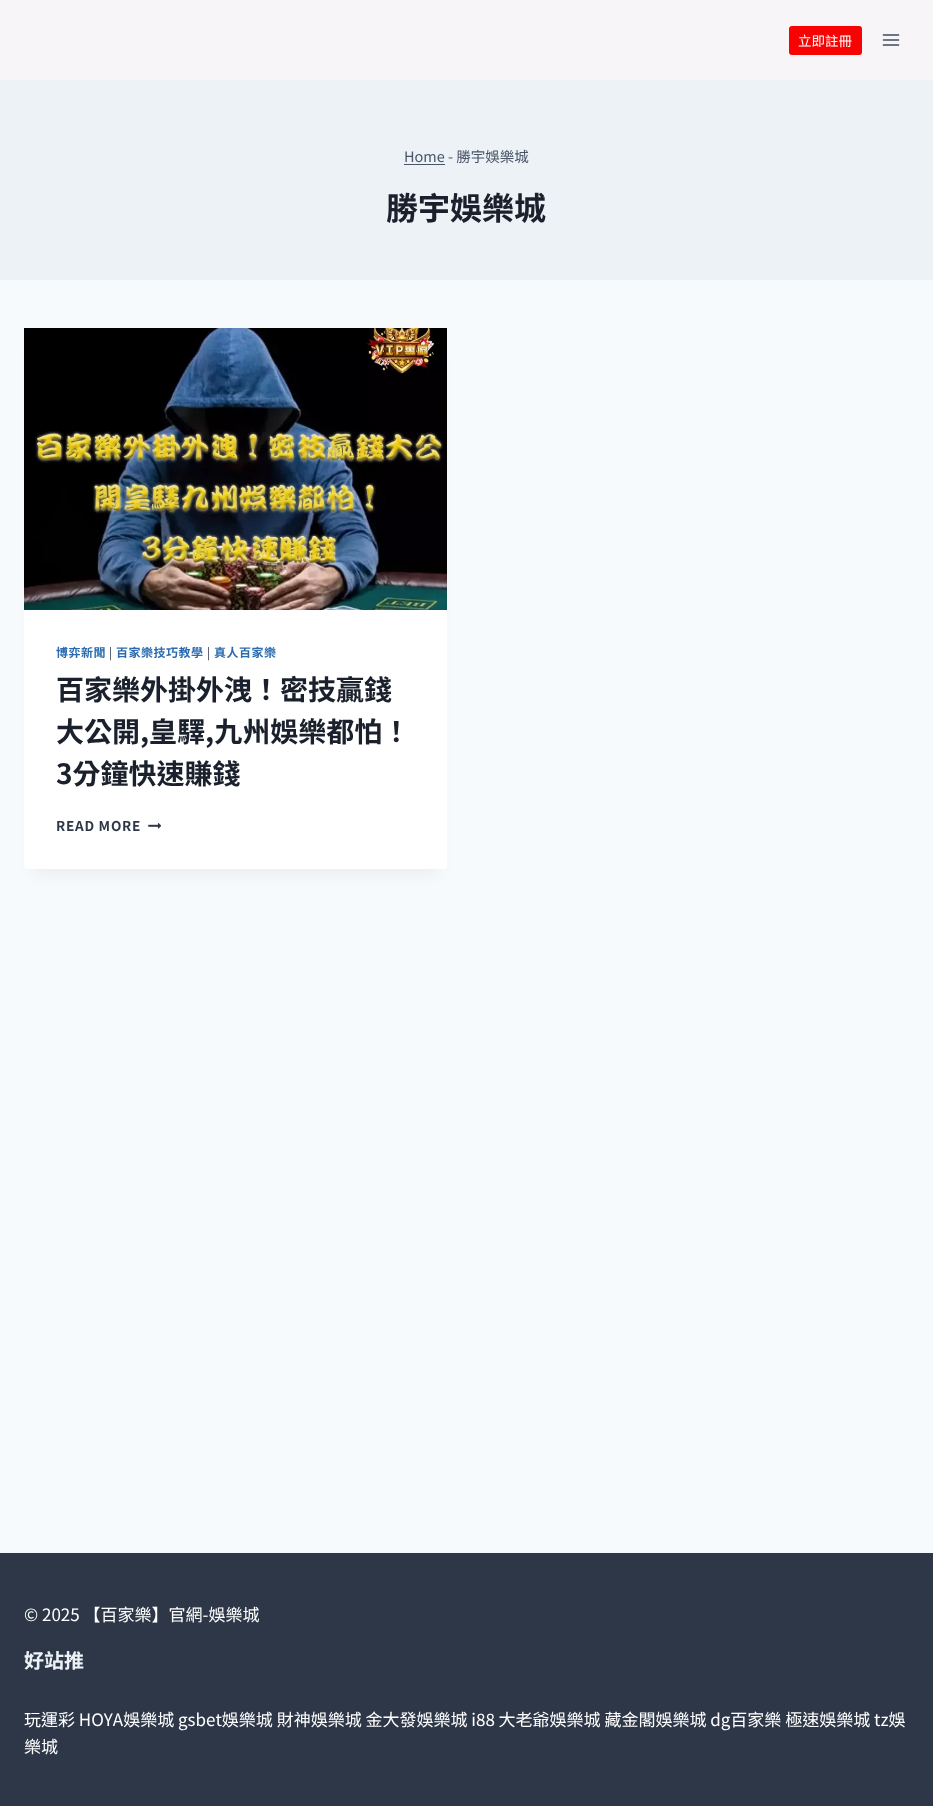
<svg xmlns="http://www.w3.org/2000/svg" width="933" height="1806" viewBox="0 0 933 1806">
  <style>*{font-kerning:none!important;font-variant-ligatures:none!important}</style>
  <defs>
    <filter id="blur1" x="-50%" y="-200%" width="200%" height="500%"><feGaussianBlur stdDeviation="7.5"/></filter>
  </defs>
  <rect width="100%" height="100%" fill="#f7fafc"/>
  <rect x="0" y="0" width="933" height="80" fill="#f7f5f7"/>
  <rect x="789" y="26" width="73" height="29" rx="3" fill="#f80303"/>
  <text x="798" y="46" font-family="Noto Sans TC" font-size="13.5" fill="#ffffff">立即註冊</text>
  <image x="882" y="34" width="18" height="12" href="img1.png"/>
  <rect x="0" y="80" width="933" height="200" fill="#edf2f7"/>
  <text x="404" y="162" font-family="Noto Sans TC" font-size="14.5" fill="#4a5568">Home - 勝宇娛樂城</text>
  <rect x="404" y="164" width="41" height="1" fill="#4a5568"/>
  <text x="386" y="220" font-family="Noto Sans TC" font-size="32" font-weight="bold" fill="#1a202c">勝宇娛樂城</text>
  <rect x="34" y="353" width="403" height="521" fill="#000000" fill-opacity="0.05" filter="url(#blur1)"/>
  <rect x="24" y="328" width="423" height="541" rx="4" fill="#ffffff"/>
  <image x="24" y="328" width="423" height="282" href="img2.png"/>
  <text x="56" y="657" font-family="Noto Sans TC" font-size="12" font-weight="bold" letter-spacing="0.5" fill="#2b6cb0">博弈新聞</text>
  <text x="109" y="657" font-family="Noto Sans TC" font-size="12" letter-spacing="0.5" fill="#2d3748">|</text>
  <text x="116" y="657" font-family="Noto Sans TC" font-size="12" font-weight="bold" letter-spacing="0.5" fill="#2b6cb0">百家樂技巧教學</text>
  <text x="207" y="657" font-family="Noto Sans TC" font-size="12" letter-spacing="0.5" fill="#2d3748">|</text>
  <text x="214" y="657" font-family="Noto Sans TC" font-size="12" font-weight="bold" letter-spacing="0.5" fill="#2b6cb0">真人百家樂</text>
  <text x="56" y="700" font-family="Noto Sans TC" font-size="28" font-weight="bold" fill="#1a202c">百家樂外掛外洩！密技贏錢</text>
  <text x="56" y="742" font-family="Noto Sans TC" font-size="28" font-weight="bold" fill="#1a202c">大公開,皇驛,九州娛樂都怕！</text>
  <text x="56" y="784" font-family="Noto Sans TC" font-size="28" font-weight="bold" fill="#1a202c">3分鐘快速賺錢</text>
  <text x="56" y="831" font-family="Noto Sans TC" font-size="13.5" font-weight="bold" letter-spacing="0.75" fill="#2d3748">READ MORE</text>
  <image x="148" y="822" width="13" height="7" href="img3.png"/>
  <rect x="0" y="1553" width="933" height="253" fill="#2d3748"/>
  <text x="24" y="1621" font-family="Noto Sans TC" font-size="17" fill="#ffffff">© 2025 【百家樂】官網-娛樂城</text>
  <text x="24" y="1668" font-family="Noto Sans TC" font-size="20" font-weight="bold" fill="#edf2f7">好站推</text>
  <text x="24" y="1726" font-family="Noto Sans TC" font-size="17" fill="#ffffff">玩運彩 HOYA娛樂城 gsbet娛樂城 財神娛樂城 金大發娛樂城 i88 大老爺娛樂城 藏金閣娛樂城 dg百家樂 極速娛樂城 tz娛</text>
  <text x="24" y="1753" font-family="Noto Sans TC" font-size="17" fill="#ffffff">樂城</text>
</svg>
